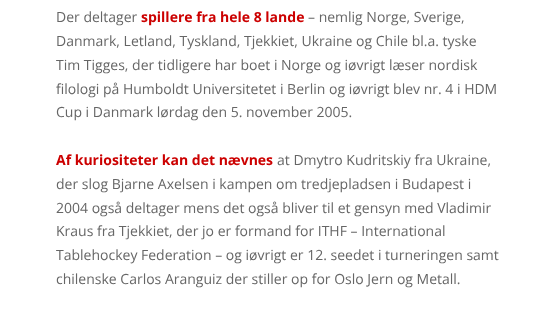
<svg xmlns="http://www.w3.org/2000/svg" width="559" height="322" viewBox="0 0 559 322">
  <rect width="100%" height="100%" fill="#ffffff"/>
  <text x="56" y="22" font-family="Open Sans" font-size="14" fill="#666666">Der deltager</text>
  <text x="141" y="22" font-family="Open Sans" font-size="14" font-weight="bold" fill="#cc0000">spillere fra hele 8 lande</text>
  <text x="308" y="22" font-family="Open Sans" font-size="14" fill="#666666">– nemlig Norge, Sverige,</text>
  <text x="56" y="46" font-family="Open Sans" font-size="14" fill="#666666">Danmark, Letland, Tyskland, Tjekkiet, Ukraine og Chile bl.a. tyske</text>
  <text x="56" y="70" font-family="Open Sans" font-size="14" fill="#666666">Tim Tigges, der tidligere har boet i Norge og iøvrigt læser nordisk</text>
  <text x="56" y="94" font-family="Open Sans" font-size="14" fill="#666666">filologi på Humboldt Universitetet i Berlin og iøvrigt blev nr. 4 i HDM</text>
  <text x="56" y="117" font-family="Open Sans" font-size="14" fill="#666666">Cup i Danmark lørdag den 5. november 2005.</text>
  <text x="56" y="165" font-family="Open Sans" font-size="14" font-weight="bold" fill="#cc0000">Af kuriositeter kan det nævnes</text>
  <text x="277" y="165" font-family="Open Sans" font-size="14" fill="#666666">at Dmytro Kudritskiy fra Ukraine,</text>
  <text x="56" y="189" font-family="Open Sans" font-size="14" fill="#666666">der slog Bjarne Axelsen i kampen om tredjepladsen i Budapest i</text>
  <text x="56" y="213" font-family="Open Sans" font-size="14" fill="#666666">2004 også deltager mens det også bliver til et gensyn med Vladimir</text>
  <text x="56" y="236" font-family="Open Sans" font-size="14" fill="#666666">Kraus fra Tjekkiet, der jo er formand for ITHF – International</text>
  <text x="56" y="260" font-family="Open Sans" font-size="14" fill="#666666">Tablehockey Federation – og iøvrigt er 12. seedet i turneringen samt</text>
  <text x="56" y="284" font-family="Open Sans" font-size="14" fill="#666666">chilenske Carlos Aranguiz der stiller op for Oslo Jern og Metall.</text>
</svg>
